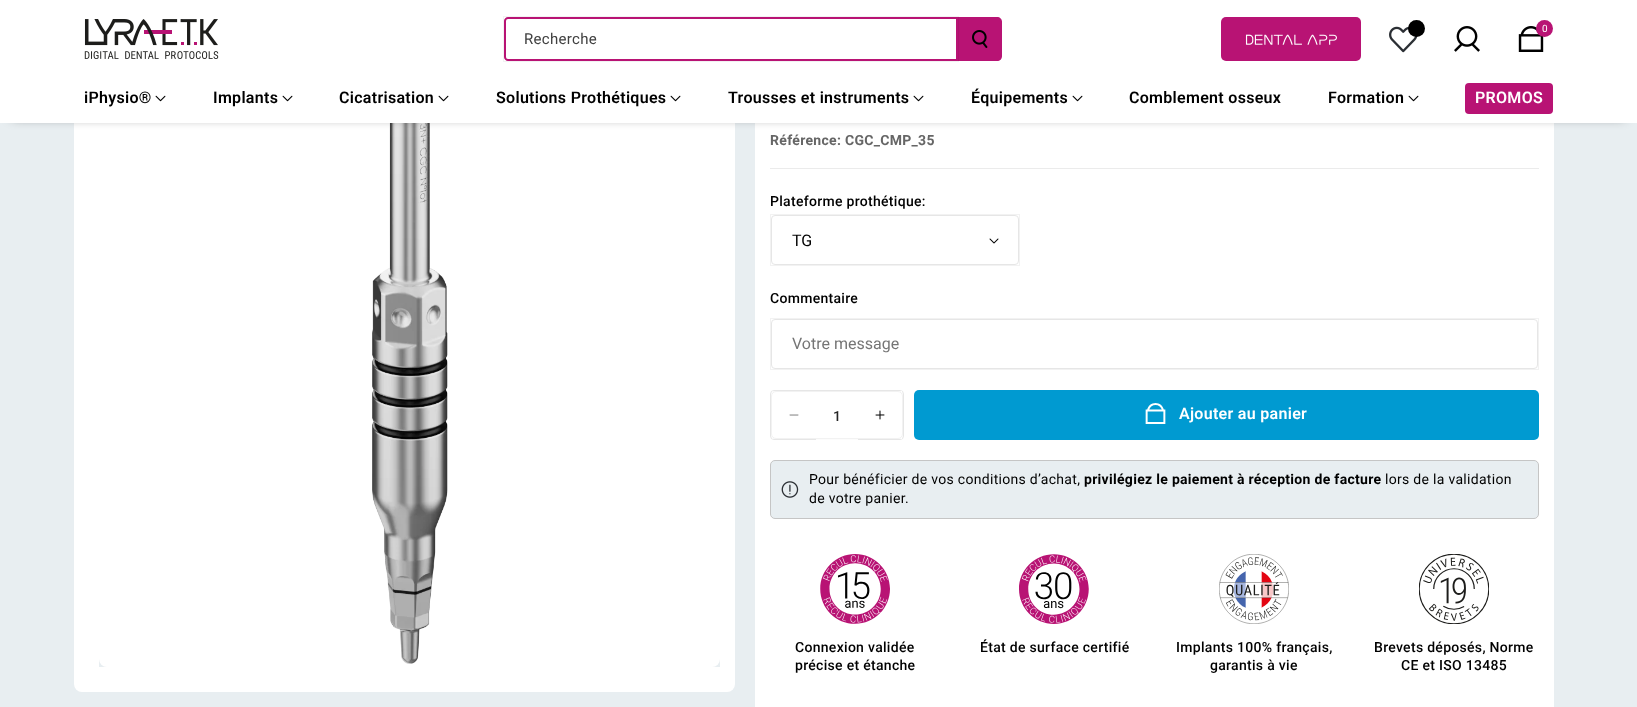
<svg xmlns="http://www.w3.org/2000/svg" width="1637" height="707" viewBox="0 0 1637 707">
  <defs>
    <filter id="blur1" x="-50%" y="-200%" width="200%" height="500%"><feGaussianBlur stdDeviation="6"/></filter>
  </defs>
  <rect width="100%" height="100%" fill="#e8eef1"/>
  <rect x="74" y="30" width="661" height="662" rx="8" fill="#ffffff"/>
  <rect x="99" y="659" width="621" height="8" fill="#e8eef1"/>
  <rect x="99" y="45" width="621" height="622" rx="8" fill="#ffffff"/>
  <image x="372" y="123" width="76" height="541" href="img8.png"/>
  <rect x="755" y="123" width="799" height="584" fill="#ffffff"/>
  <rect x="12" y="18" width="1613" height="99" fill="#000000" fill-opacity="0.6" filter="url(#blur1)"/>
  <rect x="0" y="0" width="1637" height="123" fill="#ffffff"/>
  <image x="84" y="19" width="135" height="40" href="img1.png"/>
  <rect x="1221" y="17" width="140" height="44" rx="5" fill="#b81374"/>
  <image x="1245" y="34" width="92" height="11" href="img2.png"/>
  <image x="1389" y="26" width="29" height="27" href="img3.png"/>
  <circle cx="1416.5" cy="28.5" r="8.5" fill="#000000"/>
  <image x="1454" y="26" width="26" height="26" href="img4.png"/>
  <image x="1518" y="26" width="26" height="26" href="img5.png"/>
  <circle cx="1544.5" cy="28.5" r="8.5" fill="#b81374"/>
  <text x="1542" y="32" font-family="Roboto" font-size="10" letter-spacing="0.3" fill="#ffffff">0</text>
  <path d="M508 18H957V60H508C506.5 60 505 58.5 505 57V21C505 19.5 506.5 18 508 18Z" fill="none" stroke="#b81374" stroke-width="2"/>
  <path d="M958 17H997C1000 17 1002 19 1002 22V56C1002 59 1000 61 997 61H958Z" fill="#b81374"/>
  <rect x="503.5" y="16.5" width="455" height="45" fill="none" stroke="#000000" stroke-opacity="0.05"/>
  <text x="524" y="44" font-family="Roboto" font-size="15" letter-spacing="0.3" fill="#404040">Recherche</text>
  <image x="972" y="30" width="16" height="18" href="img6.png"/>
  <text x="84" y="103" font-family="Roboto" font-size="16" font-weight="600" letter-spacing="0.3" fill="#000000">iPhysio®</text>
  <image x="155" y="95" width="11" height="7" href="img7.png"/>
  <text x="213" y="103" font-family="Roboto" font-size="16" font-weight="600" letter-spacing="0.3" fill="#000000">Implants</text>
  <image x="282" y="95" width="11" height="7" href="img7.png"/>
  <text x="339" y="103" font-family="Roboto" font-size="16" font-weight="600" letter-spacing="0.3" fill="#000000">Cicatrisation</text>
  <image x="438" y="95" width="11" height="7" href="img7.png"/>
  <text x="496" y="103" font-family="Roboto" font-size="16" font-weight="600" letter-spacing="0.3" fill="#000000">Solutions Prothétiques</text>
  <image x="670" y="95" width="11" height="7" href="img7.png"/>
  <text x="728" y="103" font-family="Roboto" font-size="16" font-weight="600" letter-spacing="0.3" fill="#000000">Trousses et instruments</text>
  <image x="913" y="95" width="11" height="7" href="img7.png"/>
  <text x="971" y="103" font-family="Roboto" font-size="16" font-weight="600" letter-spacing="0.3" fill="#000000">Équipements</text>
  <image x="1072" y="95" width="11" height="7" href="img7.png"/>
  <text x="1129" y="103" font-family="Roboto" font-size="16" font-weight="600" letter-spacing="0.3" fill="#000000">Comblement osseux</text>
  <text x="1328" y="103" font-family="Roboto" font-size="16" font-weight="600" letter-spacing="0.3" fill="#000000">Formation</text>
  <image x="1408" y="95" width="11" height="7" href="img7.png"/>
  <rect x="1465" y="83" width="88" height="31" rx="4" fill="#b81374"/>
  <text x="1475" y="103" font-family="Roboto" font-size="16" font-weight="600" letter-spacing="0.3" fill="#ffffff">PROMOS</text>
  <rect x="770" y="168" width="769" height="1" fill="#ebebeb"/>
  <text x="770" y="145" font-family="Roboto" font-size="14" font-weight="bold" letter-spacing="0.3" fill="#666666">Référence: CGC_CMP_35</text>
  <text x="770" y="206" font-family="Roboto" font-size="14" font-weight="500" letter-spacing="0.3" fill="#000000">Plateforme prothétique:</text>
  <rect x="771.5" y="215.5" width="247" height="49" rx="3.5" fill="none" stroke="#e6e6e6"/>
  <image x="989" y="238" width="10" height="6" href="img9.png"/>
  <rect x="770.5" y="214.5" width="249" height="51" fill="none" stroke="#000000" stroke-opacity="0.05"/>
  <text x="792" y="246" font-family="Roboto" font-size="16" fill="#000000">TG</text>
  <text x="770" y="303" font-family="Roboto" font-size="14" font-weight="500" letter-spacing="0.3" fill="#000000">Commentaire</text>
  <rect x="771.5" y="319.5" width="766" height="49" rx="3.5" fill="none" stroke="#e6e6e6"/>
  <rect x="770.5" y="318.5" width="768" height="51" fill="none" stroke="#000000" stroke-opacity="0.05"/>
  <text x="792" y="349" font-family="Roboto" font-size="16" fill="#757575">Votre message</text>
  <rect x="770.5" y="390.5" width="133" height="49" rx="3.5" fill="none" stroke="#e6e6e6"/>
  <rect x="772" y="391" width="1" height="48" fill="#ffffff" fill-opacity="0.5"/>
  <image x="789" y="414" width="10" height="2" href="img10.png"/>
  <rect x="901" y="391" width="1" height="48" fill="#ffffff"/>
  <image x="875" y="410" width="10" height="10" href="img11.png"/>
  <rect x="771.5" y="391.5" width="131" height="47" rx="4.5" fill="none" stroke="#f2f2f2"/>
  <rect x="816" y="439" width="42" height="1" fill="#ffffff" fill-opacity="0.85"/>
  <text x="833" y="421" font-family="Roboto" font-size="14" font-weight="500" fill="#262626">1</text>
  <rect x="914" y="390" width="625" height="50" rx="5" fill="#009ad1"/>
  <image x="1145" y="403" width="21" height="21" href="img12.png"/>
  <text x="1179" y="419" font-family="Roboto" font-size="16" font-weight="600" letter-spacing="0.3" fill="#ffffff">Ajouter au panier</text>
  <rect x="770.5" y="460.5" width="768" height="58" rx="4.5" fill="#e8eef1" stroke="#c5c5c5"/>
  <image x="781" y="481" width="18" height="17" href="img13.png"/>
  <text x="809" y="484" font-family="Roboto" font-size="14" letter-spacing="0.3" fill="#000000">Pour bénéficier de vos conditions d’achat,</text>
  <text x="1084" y="484" font-family="Roboto" font-size="14" font-weight="bold" letter-spacing="0.3" fill="#000000">privilégiez le paiement à réception de facture</text>
  <text x="1385" y="484" font-family="Roboto" font-size="14" letter-spacing="0.3" fill="#000000">lors de la validation</text>
  <text x="809" y="503" font-family="Roboto" font-size="14" letter-spacing="0.3" fill="#000000">de votre panier.</text>
  <image x="820" y="554" width="70" height="70" href="img14.png"/>
  <text x="795" y="652" font-family="Roboto" font-size="14" font-weight="500" letter-spacing="0.3" fill="#000000">Connexion validée</text>
  <text x="795" y="670" font-family="Roboto" font-size="14" font-weight="500" letter-spacing="0.3" fill="#000000">précise et étanche</text>
  <image x="1019" y="554" width="70" height="70" href="img15.png"/>
  <text x="980" y="652" font-family="Roboto" font-size="14" font-weight="500" letter-spacing="0.3" fill="#000000">État de surface certifié</text>
  <image x="1219" y="554" width="70" height="70" href="img16.png"/>
  <text x="1176" y="652" font-family="Roboto" font-size="14" font-weight="500" letter-spacing="0.3" fill="#000000">Implants 100% français,</text>
  <text x="1210" y="670" font-family="Roboto" font-size="14" font-weight="500" letter-spacing="0.3" fill="#000000">garantis à vie</text>
  <image x="1419" y="554" width="70" height="70" href="img17.png"/>
  <text x="1374" y="652" font-family="Roboto" font-size="14" font-weight="500" letter-spacing="0.3" fill="#000000">Brevets déposés, Norme</text>
  <text x="1401" y="670" font-family="Roboto" font-size="14" font-weight="500" letter-spacing="0.3" fill="#000000">CE et ISO 13485</text>
</svg>
